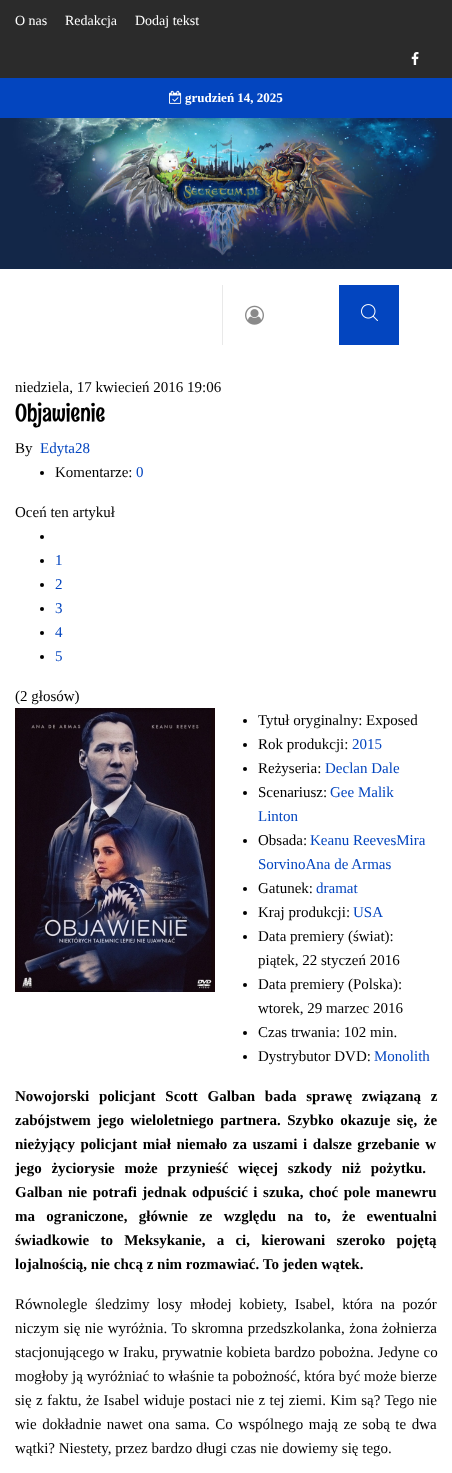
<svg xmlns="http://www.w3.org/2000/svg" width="452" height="1473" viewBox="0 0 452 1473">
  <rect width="100%" height="100%" fill="#ffffff"/>
  <rect x="0" y="0" width="452" height="78" fill="#2b2b2b"/>
  <text x="15" y="25" font-family="Liberation Serif" font-size="14" fill="#ffffff">O nas</text>
  <text x="65" y="25" font-family="Liberation Serif" font-size="14" fill="#ffffff">Redakcja</text>
  <text x="135" y="25" font-family="Liberation Serif" font-size="14" fill="#ffffff">Dodaj tekst</text>
  <image x="411" y="52" width="8" height="13" href="img1.png"/>
  <rect x="0" y="78" width="452" height="40" fill="#0345bf"/>
  <image x="169" y="90" width="13" height="14" href="img2.png"/>
  <text x="185" y="102" font-family="Liberation Serif" font-size="13" font-weight="bold" fill="#ffffff">grudzień 14, 2025</text>
  <image x="0" y="118" width="452" height="151" href="img3.png"/>
  <rect x="222" y="285" width="1" height="60" fill="#e9e9e9"/>
  <image x="245" y="305" width="19" height="20" href="img4.png"/>
  <rect x="339" y="285" width="60" height="60" fill="#0345bf"/>
  <image x="361" y="304" width="17" height="17" href="img5.png"/>
  <text x="15" y="392" font-family="Liberation Serif" font-size="15" fill="#000000">niedziela, 17 kwiecień 2016 19:06</text>
  <text x="15" y="421" font-family="Rum Raisin" font-size="24" fill="#000000">Objawienie</text>
  <text x="15" y="453" font-family="Liberation Serif" font-size="15" fill="#000000">By</text>
  <text x="40" y="453" font-family="Liberation Serif" font-size="15" fill="#0345bf">Edyta28</text>
  <circle cx="42" cy="473" r="2" fill="#000000"/>
  <text x="55" y="477" font-family="Liberation Serif" font-size="15" fill="#000000">Komentarze:</text>
  <text x="136" y="477" font-family="Liberation Serif" font-size="15" fill="#0345bf">0</text>
  <text x="15" y="517" font-family="Liberation Serif" font-size="15" fill="#000000">Oceń ten artykuł</text>
  <circle cx="42" cy="537" r="2" fill="#000000"/>
  <circle cx="42" cy="561" r="2" fill="#000000"/>
  <text x="55" y="565" font-family="Liberation Serif" font-size="15" fill="#0345bf">1</text>
  <circle cx="42" cy="585" r="2" fill="#000000"/>
  <text x="55" y="589" font-family="Liberation Serif" font-size="15" fill="#0345bf">2</text>
  <circle cx="42" cy="609" r="2" fill="#000000"/>
  <text x="55" y="613" font-family="Liberation Serif" font-size="15" fill="#0345bf">3</text>
  <circle cx="42" cy="633" r="2" fill="#000000"/>
  <text x="55" y="637" font-family="Liberation Serif" font-size="15" fill="#0345bf">4</text>
  <circle cx="42" cy="657" r="2" fill="#000000"/>
  <text x="55" y="661" font-family="Liberation Serif" font-size="15" fill="#0345bf">5</text>
  <text x="15" y="701" font-family="Liberation Serif" font-size="15" fill="#000000">(2 głosów)</text>
  <image x="15" y="708" width="200" height="284" href="img6.png"/>
  <circle cx="245" cy="721" r="2" fill="#000000"/>
  <text x="258" y="725" font-family="Liberation Serif" font-size="15" fill="#000000">Tytuł oryginalny: Exposed</text>
  <circle cx="245" cy="745" r="2" fill="#000000"/>
  <text x="258" y="749" font-family="Liberation Serif" font-size="15" fill="#000000">Rok produkcji:</text>
  <text x="352" y="749" font-family="Liberation Serif" font-size="15" fill="#0345bf">2015</text>
  <circle cx="245" cy="769" r="2" fill="#000000"/>
  <text x="258" y="773" font-family="Liberation Serif" font-size="15" fill="#000000">Reżyseria:</text>
  <text x="325" y="773" font-family="Liberation Serif" font-size="15" fill="#0345bf">Declan Dale</text>
  <circle cx="245" cy="793" r="2" fill="#000000"/>
  <text x="258" y="797" font-family="Liberation Serif" font-size="15" fill="#000000">Scenariusz:</text>
  <text x="330" y="797" font-family="Liberation Serif" font-size="15" fill="#0345bf">Gee Malik</text>
  <text x="258" y="821" font-family="Liberation Serif" font-size="15" fill="#0345bf">Linton</text>
  <circle cx="245" cy="841" r="2" fill="#000000"/>
  <text x="258" y="845" font-family="Liberation Serif" font-size="15" fill="#000000">Obsada:</text>
  <text x="310" y="845" font-family="Liberation Serif" font-size="15" fill="#0345bf">Keanu ReevesMira</text>
  <text x="258" y="869" font-family="Liberation Serif" font-size="15" fill="#0345bf">SorvinoAna de Armas</text>
  <circle cx="245" cy="889" r="2" fill="#000000"/>
  <text x="258" y="893" font-family="Liberation Serif" font-size="15" fill="#000000">Gatunek:</text>
  <text x="316" y="893" font-family="Liberation Serif" font-size="15" fill="#0345bf">dramat</text>
  <circle cx="245" cy="913" r="2" fill="#000000"/>
  <text x="258" y="917" font-family="Liberation Serif" font-size="15" fill="#000000">Kraj produkcji:</text>
  <text x="353" y="917" font-family="Liberation Serif" font-size="15" fill="#0345bf">USA</text>
  <circle cx="245" cy="937" r="2" fill="#000000"/>
  <text x="258" y="941" font-family="Liberation Serif" font-size="15" fill="#000000">Data premiery (świat):</text>
  <text x="258" y="965" font-family="Liberation Serif" font-size="15" fill="#000000">piątek, 22 styczeń 2016</text>
  <circle cx="245" cy="985" r="2" fill="#000000"/>
  <text x="258" y="989" font-family="Liberation Serif" font-size="15" fill="#000000">Data premiery (Polska):</text>
  <text x="258" y="1013" font-family="Liberation Serif" font-size="15" fill="#000000">wtorek, 29 marzec 2016</text>
  <circle cx="245" cy="1033" r="2" fill="#000000"/>
  <text x="258" y="1037" font-family="Liberation Serif" font-size="15" fill="#000000">Czas trwania: 102 min.</text>
  <circle cx="245" cy="1057" r="2" fill="#000000"/>
  <text x="258" y="1061" font-family="Liberation Serif" font-size="15" fill="#000000">Dystrybutor DVD:</text>
  <text x="374" y="1061" font-family="Liberation Serif" font-size="15" fill="#0345bf">Monolith</text>
  <text x="15" y="1101" word-spacing="6" font-family="Liberation Serif" font-size="15" font-weight="bold" fill="#000000">Nowojorski policjant Scott Galban bada sprawę związaną z</text>
  <text x="15" y="1125" word-spacing="2.75" font-family="Liberation Serif" font-size="15" font-weight="bold" fill="#000000">zabójstwem jego wieloletniego partnera. Szybko okazuje się, że</text>
  <text x="15" y="1149" word-spacing="1.75" font-family="Liberation Serif" font-size="15" font-weight="bold" fill="#000000">nieżyjący policjant miał niemało za uszami i dalsze grzebanie w</text>
  <text x="15" y="1173" word-spacing="6" font-family="Liberation Serif" font-size="15" font-weight="bold" fill="#000000">jego życiorysie może przynieść więcej szkody niż pożytku.</text>
  <text x="15" y="1197" word-spacing="1.75" font-family="Liberation Serif" font-size="15" font-weight="bold" fill="#000000">Galban nie potrafi jednak odpuścić i szuka, choć pole manewru</text>
  <text x="15" y="1221" word-spacing="7.5" font-family="Liberation Serif" font-size="15" font-weight="bold" fill="#000000">ma ograniczone, głównie ze względu na to, że ewentualni</text>
  <text x="15" y="1245" word-spacing="7.5" font-family="Liberation Serif" font-size="15" font-weight="bold" fill="#000000">świadkowie to Meksykanie, a ci, kierowani szeroko pojętą</text>
  <text x="15" y="1269" font-family="Liberation Serif" font-size="15" font-weight="bold" fill="#000000">lojalnością, nie chcą z nim rozmawiać. To jeden wątek.</text>
  <text x="15" y="1309" word-spacing="4" font-family="Liberation Serif" font-size="15" fill="#000000">Równolegle śledzimy losy młodej kobiety, Isabel, która na pozór</text>
  <text x="15" y="1333" word-spacing="0.75" font-family="Liberation Serif" font-size="15" fill="#000000">niczym się nie wyróżnia. To skromna przedszkolanka, żona żołnierza</text>
  <text x="15" y="1357" word-spacing="0.25" font-family="Liberation Serif" font-size="15" fill="#000000">stacjonującego w Iraku, prywatnie kobieta bardzo pobożna. Jedyne co</text>
  <text x="15" y="1381" font-family="Liberation Serif" font-size="15" fill="#000000">mogłoby ją wyróżniać to właśnie ta pobożność, która być może bierze</text>
  <text x="15" y="1405" word-spacing="0.6" font-family="Liberation Serif" font-size="15" fill="#000000">się z faktu, że Isabel widuje postaci nie z tej ziemi. Kim są? Tego nie</text>
  <text x="15" y="1429" word-spacing="1.75" font-family="Liberation Serif" font-size="15" fill="#000000">wie dokładnie nawet ona sama. Co wspólnego mają ze sobą te dwa</text>
  <text x="15" y="1453" font-family="Liberation Serif" font-size="15" fill="#000000">wątki? Niestety, przez bardzo długi czas nie dowiemy się tego.</text>
</svg>
